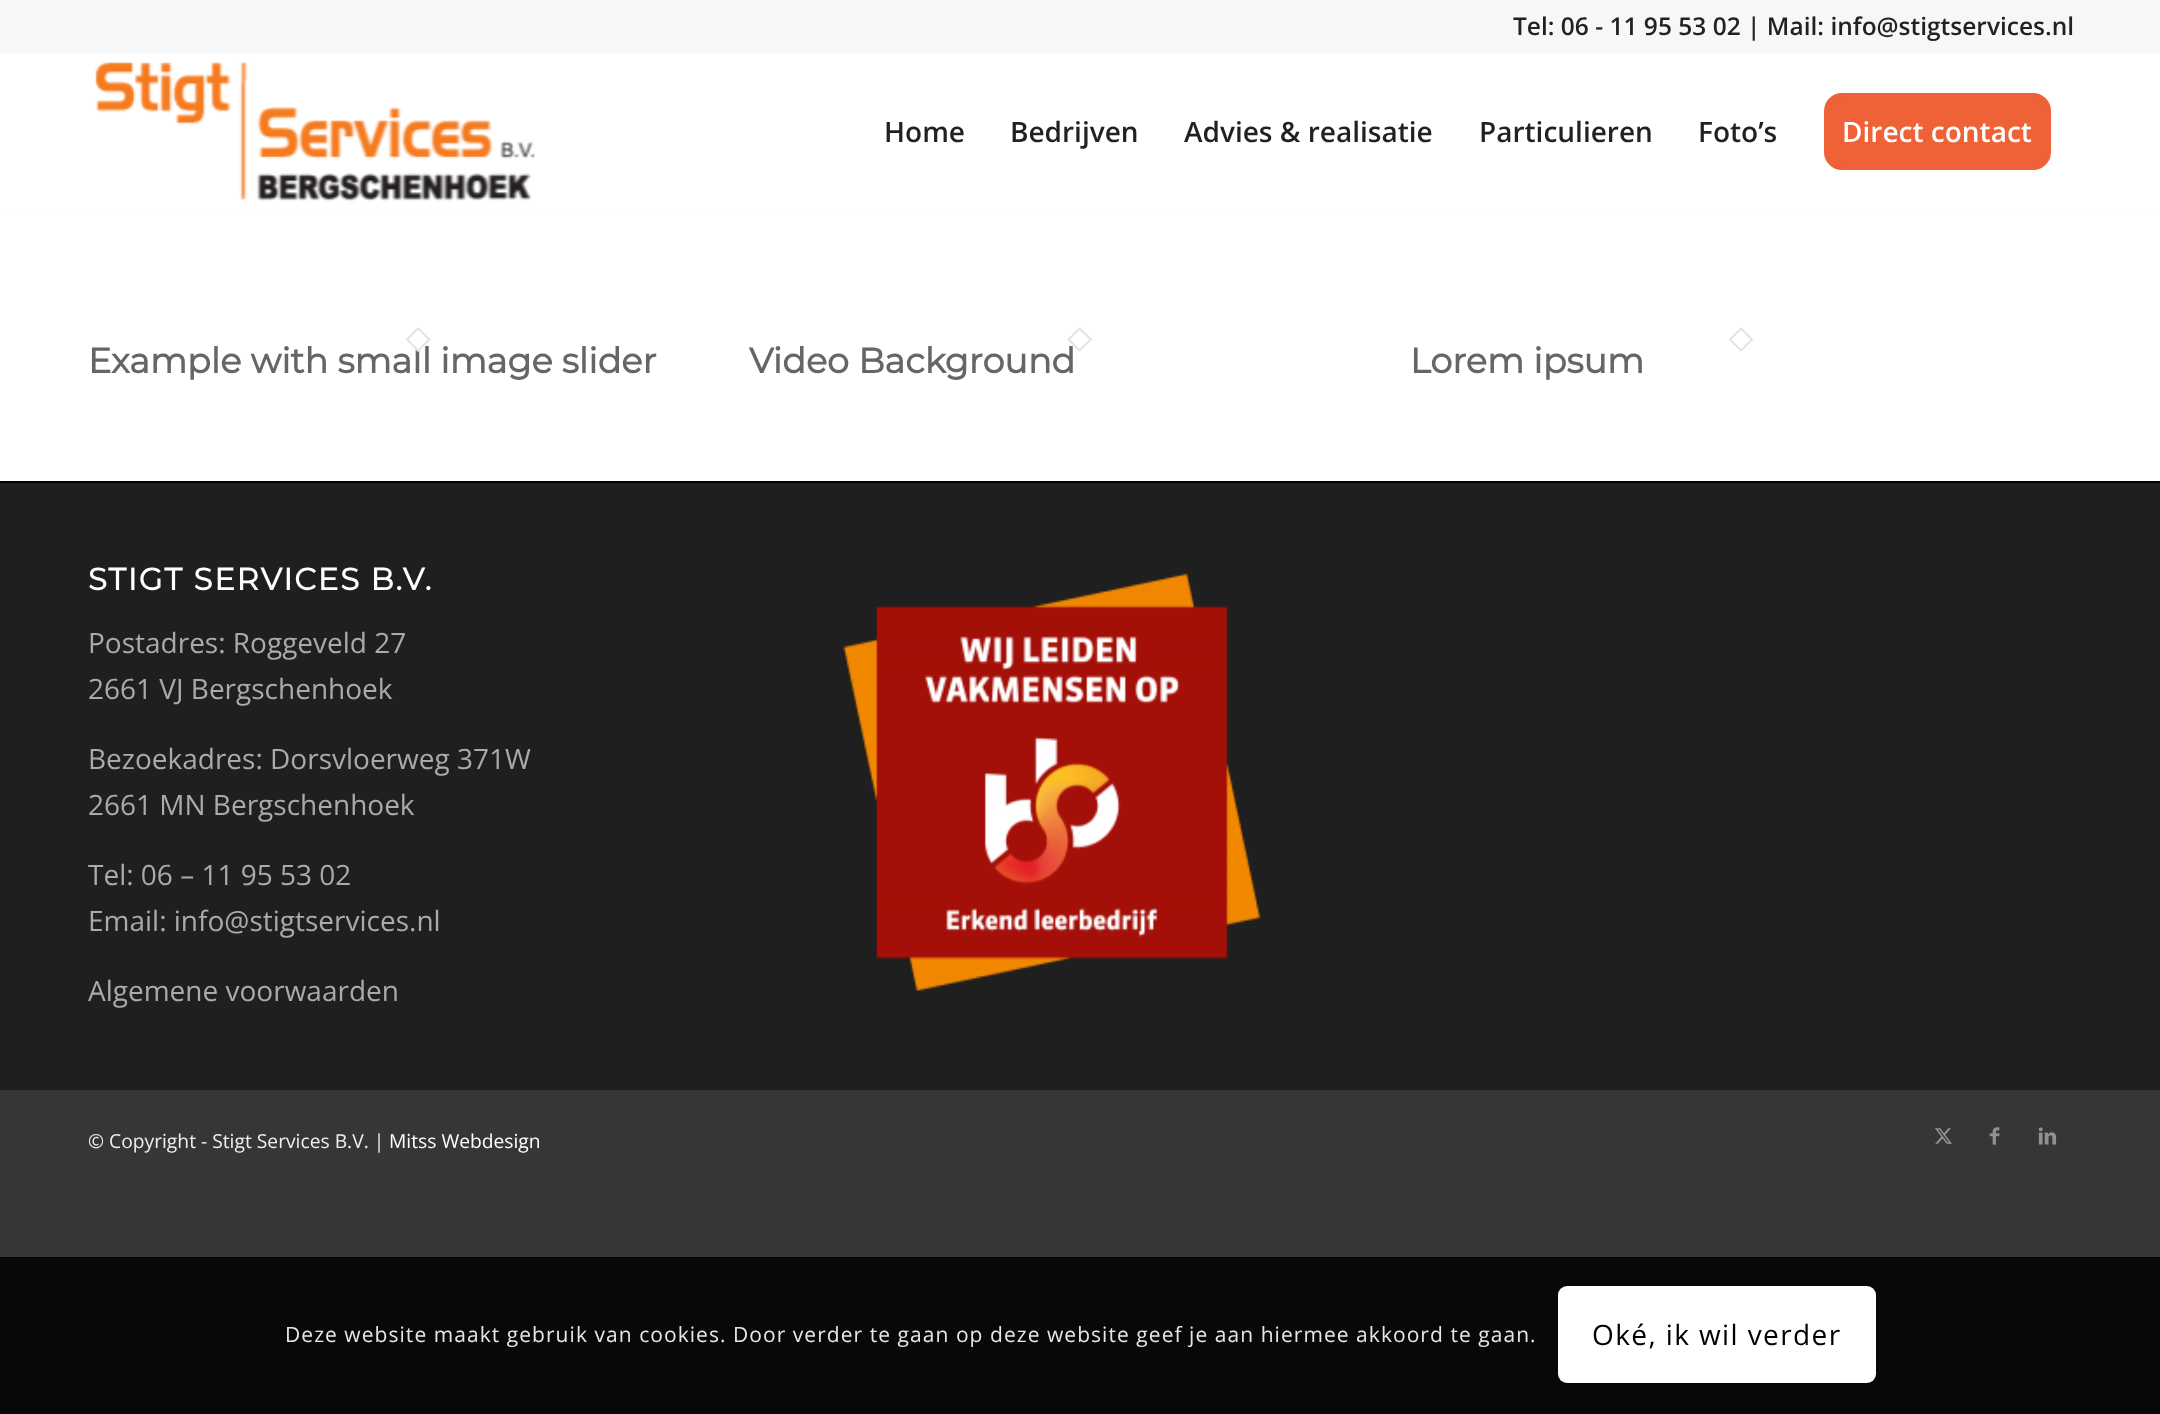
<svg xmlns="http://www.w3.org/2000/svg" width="2160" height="1414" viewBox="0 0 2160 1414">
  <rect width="100%" height="100%" fill="#363636"/>
  <rect x="0" y="210" width="2160" height="271" fill="#ffffff"/>
  <rect x="0" y="53" width="2160" height="155" fill="#ffffff"/>
  <rect x="0" y="0" width="2160" height="53" fill="#f7f7f7"/>
  <text x="1513" y="35" font-family="Open Sans" font-size="24.5" font-weight="600" fill="#241f20">Tel: 06 - 11 95 53 02 | Mail: info@stigtservices.nl</text>
  <image x="95" y="62" width="440" height="140" href="img1.png"/>
  <text x="884" y="142" font-family="Open Sans" font-size="28" font-weight="600" fill="#241f20">Home</text>
  <text x="1010" y="142" font-family="Open Sans" font-size="28" font-weight="600" fill="#241f20">Bedrijven</text>
  <text x="1184" y="142" font-family="Open Sans" font-size="28" font-weight="600" fill="#241f20">Advies &amp; realisatie</text>
  <text x="1479" y="142" font-family="Open Sans" font-size="28" font-weight="600" fill="#241f20">Particulieren</text>
  <text x="1698" y="142" font-family="Open Sans" font-size="28" font-weight="600" fill="#241f20">Foto’s</text>
  <rect x="1826" y="95" width="223" height="73" rx="16" fill="#ef6136" stroke="#ef6136" stroke-width="4"/>
  <text x="1842" y="142" font-family="Open Sans" font-size="28" font-weight="600" fill="#ffffff">Direct contact</text>
  <rect x="0" y="208" width="2160" height="2" fill="#fefefe"/>
  <text x="88" y="373" font-family="Montserrat" font-size="35" font-weight="bold" fill="#666666">Example with small image slider</text>
  <path d="M418 327L430.5 339.5L418 352L406 339.5Z" fill="#ffffff"/>
  <path d="M418 328.5L429.5 339.5L418 350.5L407 339.5Z" fill="none" stroke="#e1e1e1" stroke-width="1.8"/>
  <text x="749" y="373" font-family="Montserrat" font-size="35" font-weight="bold" fill="#666666">Video Background</text>
  <path d="M1079.5 328.5L1091 339.5L1079.5 350.5L1068.5 339.5Z" fill="none" stroke="#e1e1e1" stroke-width="1.8"/>
  <path d="M1741 328.5L1752 339.5L1741 350.5L1730 339.5Z" fill="none" stroke="#e1e1e1" stroke-width="1.8"/>
  <text x="1410" y="373" font-family="Montserrat" font-size="35" font-weight="bold" fill="#666666">Lorem ipsum</text>
  <rect x="0" y="483" width="2160" height="607" fill="#1f1f1f"/>
  <rect x="0" y="481" width="2160" height="2" fill="#000000"/>
  <text x="88" y="590" font-family="Montserrat" font-size="30.75" font-weight="bold" letter-spacing="1.75" fill="#ffffff">STIGT SERVICES B.V.</text>
  <text x="88" y="653" font-family="Open Sans" font-size="28" fill="#aaaaaa">Postadres: Roggeveld 27</text>
  <text x="88" y="699" font-family="Open Sans" font-size="28" fill="#aaaaaa">2661 VJ Bergschenhoek</text>
  <text x="88" y="769" font-family="Open Sans" font-size="28" fill="#aaaaaa">Bezoekadres: Dorsvloerweg 371W</text>
  <text x="88" y="815" font-family="Open Sans" font-size="28" fill="#aaaaaa">2661 MN Bergschenhoek</text>
  <text x="88" y="885" font-family="Open Sans" font-size="28" fill="#aaaaaa">Tel: 06 – 11 95 53 02</text>
  <text x="88" y="931" font-family="Open Sans" font-size="28" fill="#aaaaaa">Email: info@stigtservices.nl</text>
  <text x="88" y="1001" font-family="Open Sans" font-size="28" fill="#aaaaaa">Algemene voorwaarden</text>
  <image x="843" y="573" width="418" height="418" href="img2.png"/>
  <text x="88" y="1148" font-family="Open Sans" font-size="19.25" fill="#eeeeee">© Copyright - Stigt Services B.V. |</text>
  <text x="389" y="1148" font-family="Open Sans" font-size="19.25" fill="#ffffff">Mitss Webdesign</text>
  <image x="1935" y="1128" width="17" height="16" href="img3.png"/>
  <image x="1989" y="1127" width="11" height="18" href="img4.png"/>
  <image x="2038" y="1127" width="19" height="18" href="img5.png"/>
  <rect x="0" y="1257" width="2160" height="157" fill="#080808"/>
  <text x="285" y="1342" font-family="Open Sans" font-size="21" letter-spacing="1.05" fill="#e6e6e6">Deze website maakt gebruik van cookies. Door verder te gaan op deze website geef je aan hiermee akkoord te gaan.</text>
  <rect x="1558" y="1286" width="318" height="97" rx="9" fill="#ffffff"/>
  <text x="1592" y="1345" font-family="Open Sans" font-size="28" letter-spacing="1.4" fill="#000000">Oké, ik wil verder</text>
</svg>
